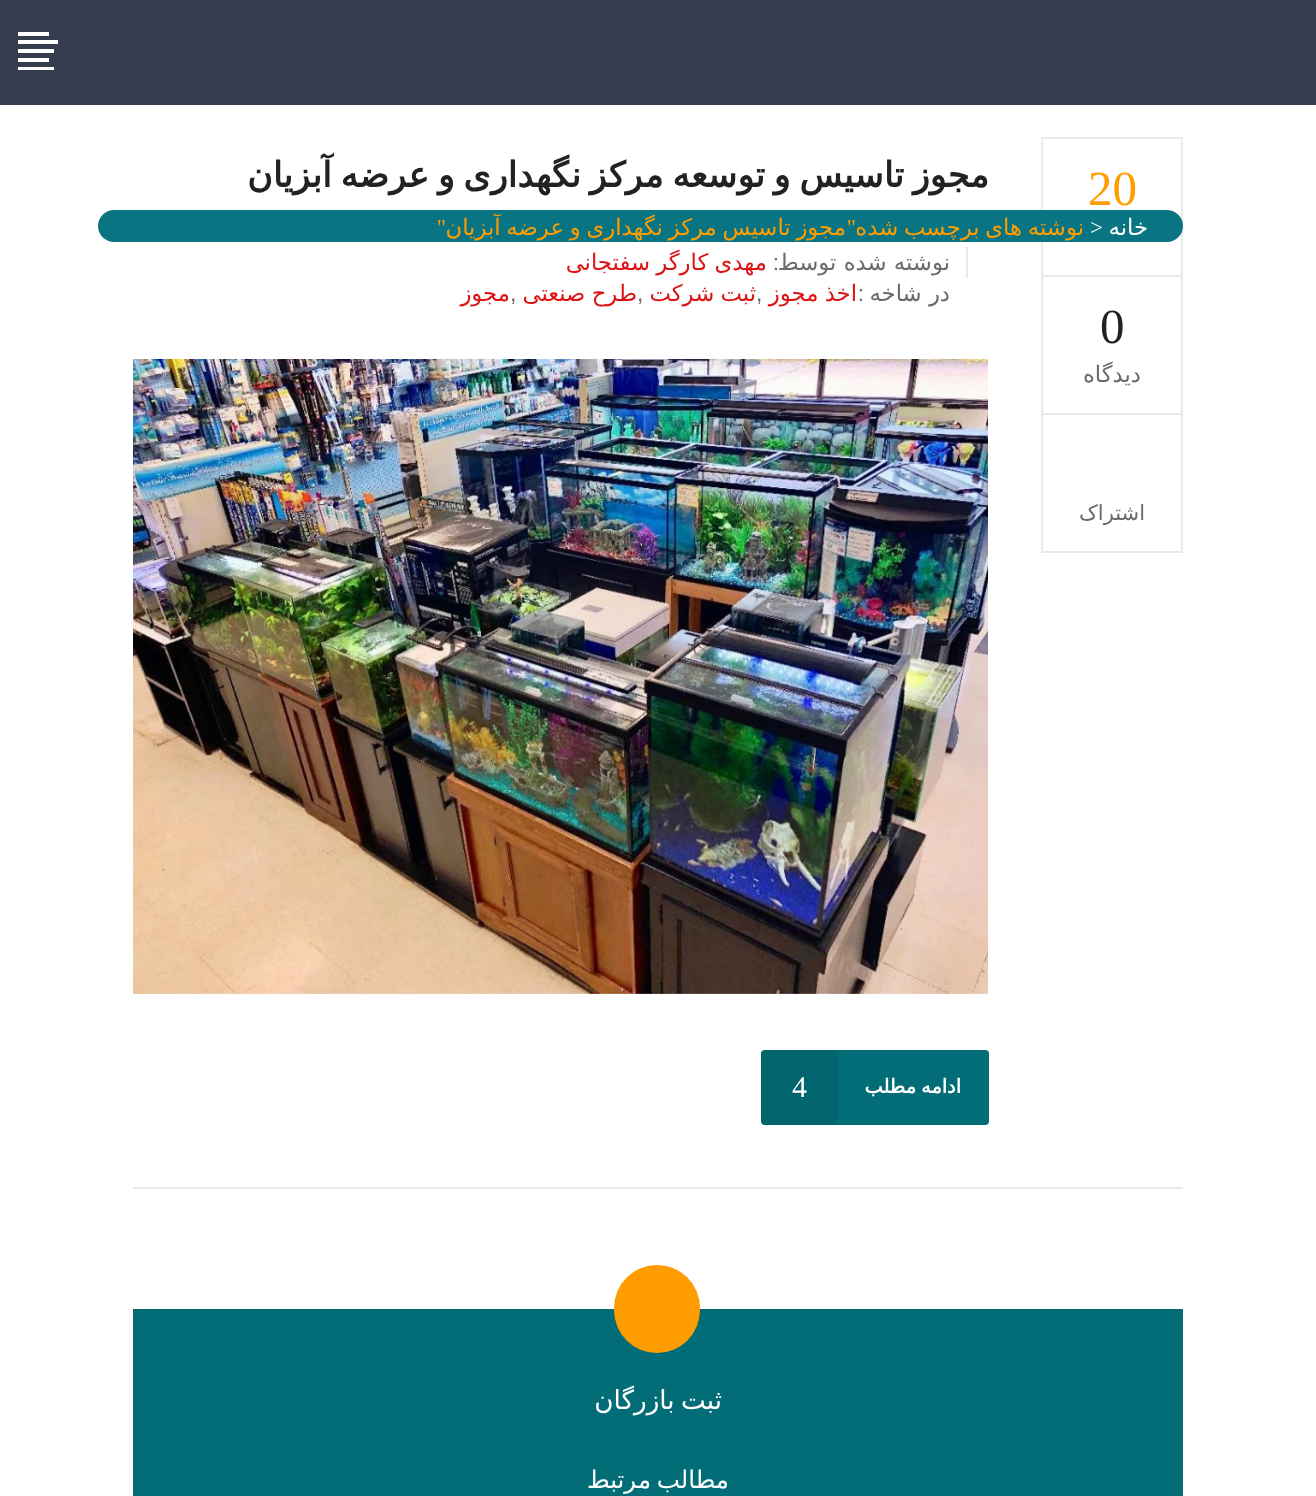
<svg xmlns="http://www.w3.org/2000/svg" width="1316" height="1496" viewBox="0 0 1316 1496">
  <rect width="100%" height="100%" fill="#ffffff"/>
  <rect x="0" y="0" width="1316" height="105" fill="#353c4e"/>
  <rect x="18" y="32" width="31" height="4" fill="#ffffff"/>
  <rect x="18" y="40" width="40" height="4" fill="#ffffff"/>
  <rect x="18" y="49" width="36" height="4" fill="#ffffff"/>
  <rect x="18" y="58" width="31" height="4" fill="#ffffff"/>
  <rect x="18" y="67" width="36" height="3" fill="#ffffff"/>
  <rect x="133" y="1187" width="1050" height="2" fill="#e9e9e9"/>
  <rect x="1042" y="138" width="140" height="414" fill="none" stroke="#e9e9e9" stroke-width="2"/>
  <rect x="1043" y="275" width="138" height="2" fill="#e9e9e9"/>
  <text x="1088" y="205" font-family="Liberation Serif" font-size="49" fill="#ff9d00">20</text>
  <rect x="1043" y="413" width="138" height="2" fill="#e9e9e9"/>
  <text x="1100" y="343" font-family="Liberation Serif" font-size="49" fill="#222222">0</text>
  <text x="1141" y="382" font-family="DejaVu Sans" font-size="22.75" direction="rtl" fill="#6a6a6a">دیدگاه</text>
  <text x="1145" y="520" font-family="DejaVu Sans" font-size="21" direction="rtl" fill="#6a6a6a">اشتراک</text>
  <text x="989" y="187" word-spacing="-2.5" font-family="DejaVu Sans" font-size="35" font-weight="bold" direction="rtl" fill="#222222">مجوز تاسیس و توسعه مرکز نگهداری و عرضه آبزیان</text>
  <rect x="966" y="247" width="2" height="31" fill="#eaeaeb"/>
  <text x="950" y="270" font-family="DejaVu Sans" font-size="22.75" direction="rtl" fill="#6a6a6a">نوشته شده توسط</text>
  <text x="779" y="270" font-family="Liberation Sans" font-size="22.75" direction="rtl" fill="#6a6a6a">:</text>
  <text x="767" y="270" word-spacing="-1" font-family="DejaVu Sans" font-size="22.75" direction="rtl" fill="#dd1313">مهدی کارگر سفتجانی</text>
  <text x="950" y="301" font-family="DejaVu Sans" font-size="22.75" direction="rtl" fill="#6a6a6a">در شاخه</text>
  <text x="864" y="301" font-family="Liberation Sans" font-size="22.75" direction="rtl" fill="#6a6a6a">:</text>
  <text x="857" y="301" word-spacing="-1" font-family="DejaVu Sans" font-size="22.75" direction="rtl" fill="#dd1313">اخذ مجوز</text>
  <text x="756" y="301" font-family="Liberation Sans" font-size="22.75" fill="#6a6a6a">,</text>
  <text x="756" y="301" word-spacing="-1" font-family="DejaVu Sans" font-size="22.75" direction="rtl" fill="#dd1313">ثبت شرکت</text>
  <text x="637" y="301" font-family="Liberation Sans" font-size="22.75" fill="#6a6a6a">,</text>
  <text x="637" y="301" word-spacing="-1" font-family="DejaVu Sans" font-size="22.75" direction="rtl" fill="#dd1313">طرح صنعتی</text>
  <text x="510" y="301" font-family="Liberation Sans" font-size="22.75" fill="#6a6a6a">,</text>
  <text x="510" y="301" font-family="DejaVu Sans" font-size="22.75" direction="rtl" fill="#dd1313">مجوز</text>
  <image x="133" y="359" width="855" height="635" href="img1.png"/>
  <rect x="761" y="1050" width="228" height="75" rx="4" fill="#036d77"/>
  <text x="961" y="1093" word-spacing="-1" font-family="DejaVu Sans" font-size="19.25" font-weight="bold" direction="rtl" fill="#ffffff">ادامه مطلب</text>
  <path d="M765 1050H837V1125H765C763 1125 761 1123 761 1121V1054C761 1052 763 1050 765 1050Z" fill="#000000" fill-opacity="0.08"/>
  <text x="792" y="1097" font-family="Liberation Serif" font-size="30" fill="#ffffff">4</text>
  <rect x="133" y="1309" width="1050" height="187" fill="#036d77"/>
  <rect x="614" y="1265" width="86" height="88" rx="43" fill="#ff9d00"/>
  <text x="722" y="1409" word-spacing="-2" font-family="DejaVu Sans" font-size="26.25" direction="rtl" fill="#ffffff">ثبت بازرگان</text>
  <text x="729" y="1488" word-spacing="-2" font-family="DejaVu Sans" font-size="24.5" direction="rtl" fill="#ffffff">مطالب مرتبط</text>
  <rect x="98" y="210" width="1085" height="32" rx="16" fill="#0a7582"/>
  <text x="1148" y="235" font-family="DejaVu Sans" font-size="22.75" direction="rtl" fill="#ffffff">خانه</text>
  <text x="1090" y="235" font-family="Liberation Serif" font-size="22.75" fill="#ffffff">&gt;</text>
  <text x="1084" y="235" word-spacing="-1.5" font-family="DejaVu Sans" font-size="22.75" direction="rtl" fill="#ff9d00">نوشته های برچسب شده</text>
  <text x="846" y="235" word-spacing="-1.5" font-family="DejaVu Sans" font-size="22.75" direction="rtl" fill="#ff9d00">مجوز تاسیس مرکز نگهداری و عرضه آبزیان</text>
  <text x="446" y="235" font-family="Liberation Serif" font-size="22.75" direction="rtl" fill="#ff9d00">"</text>
  <text x="856" y="235" font-family="Liberation Serif" font-size="22.75" direction="rtl" fill="#ff9d00">"</text>
</svg>
